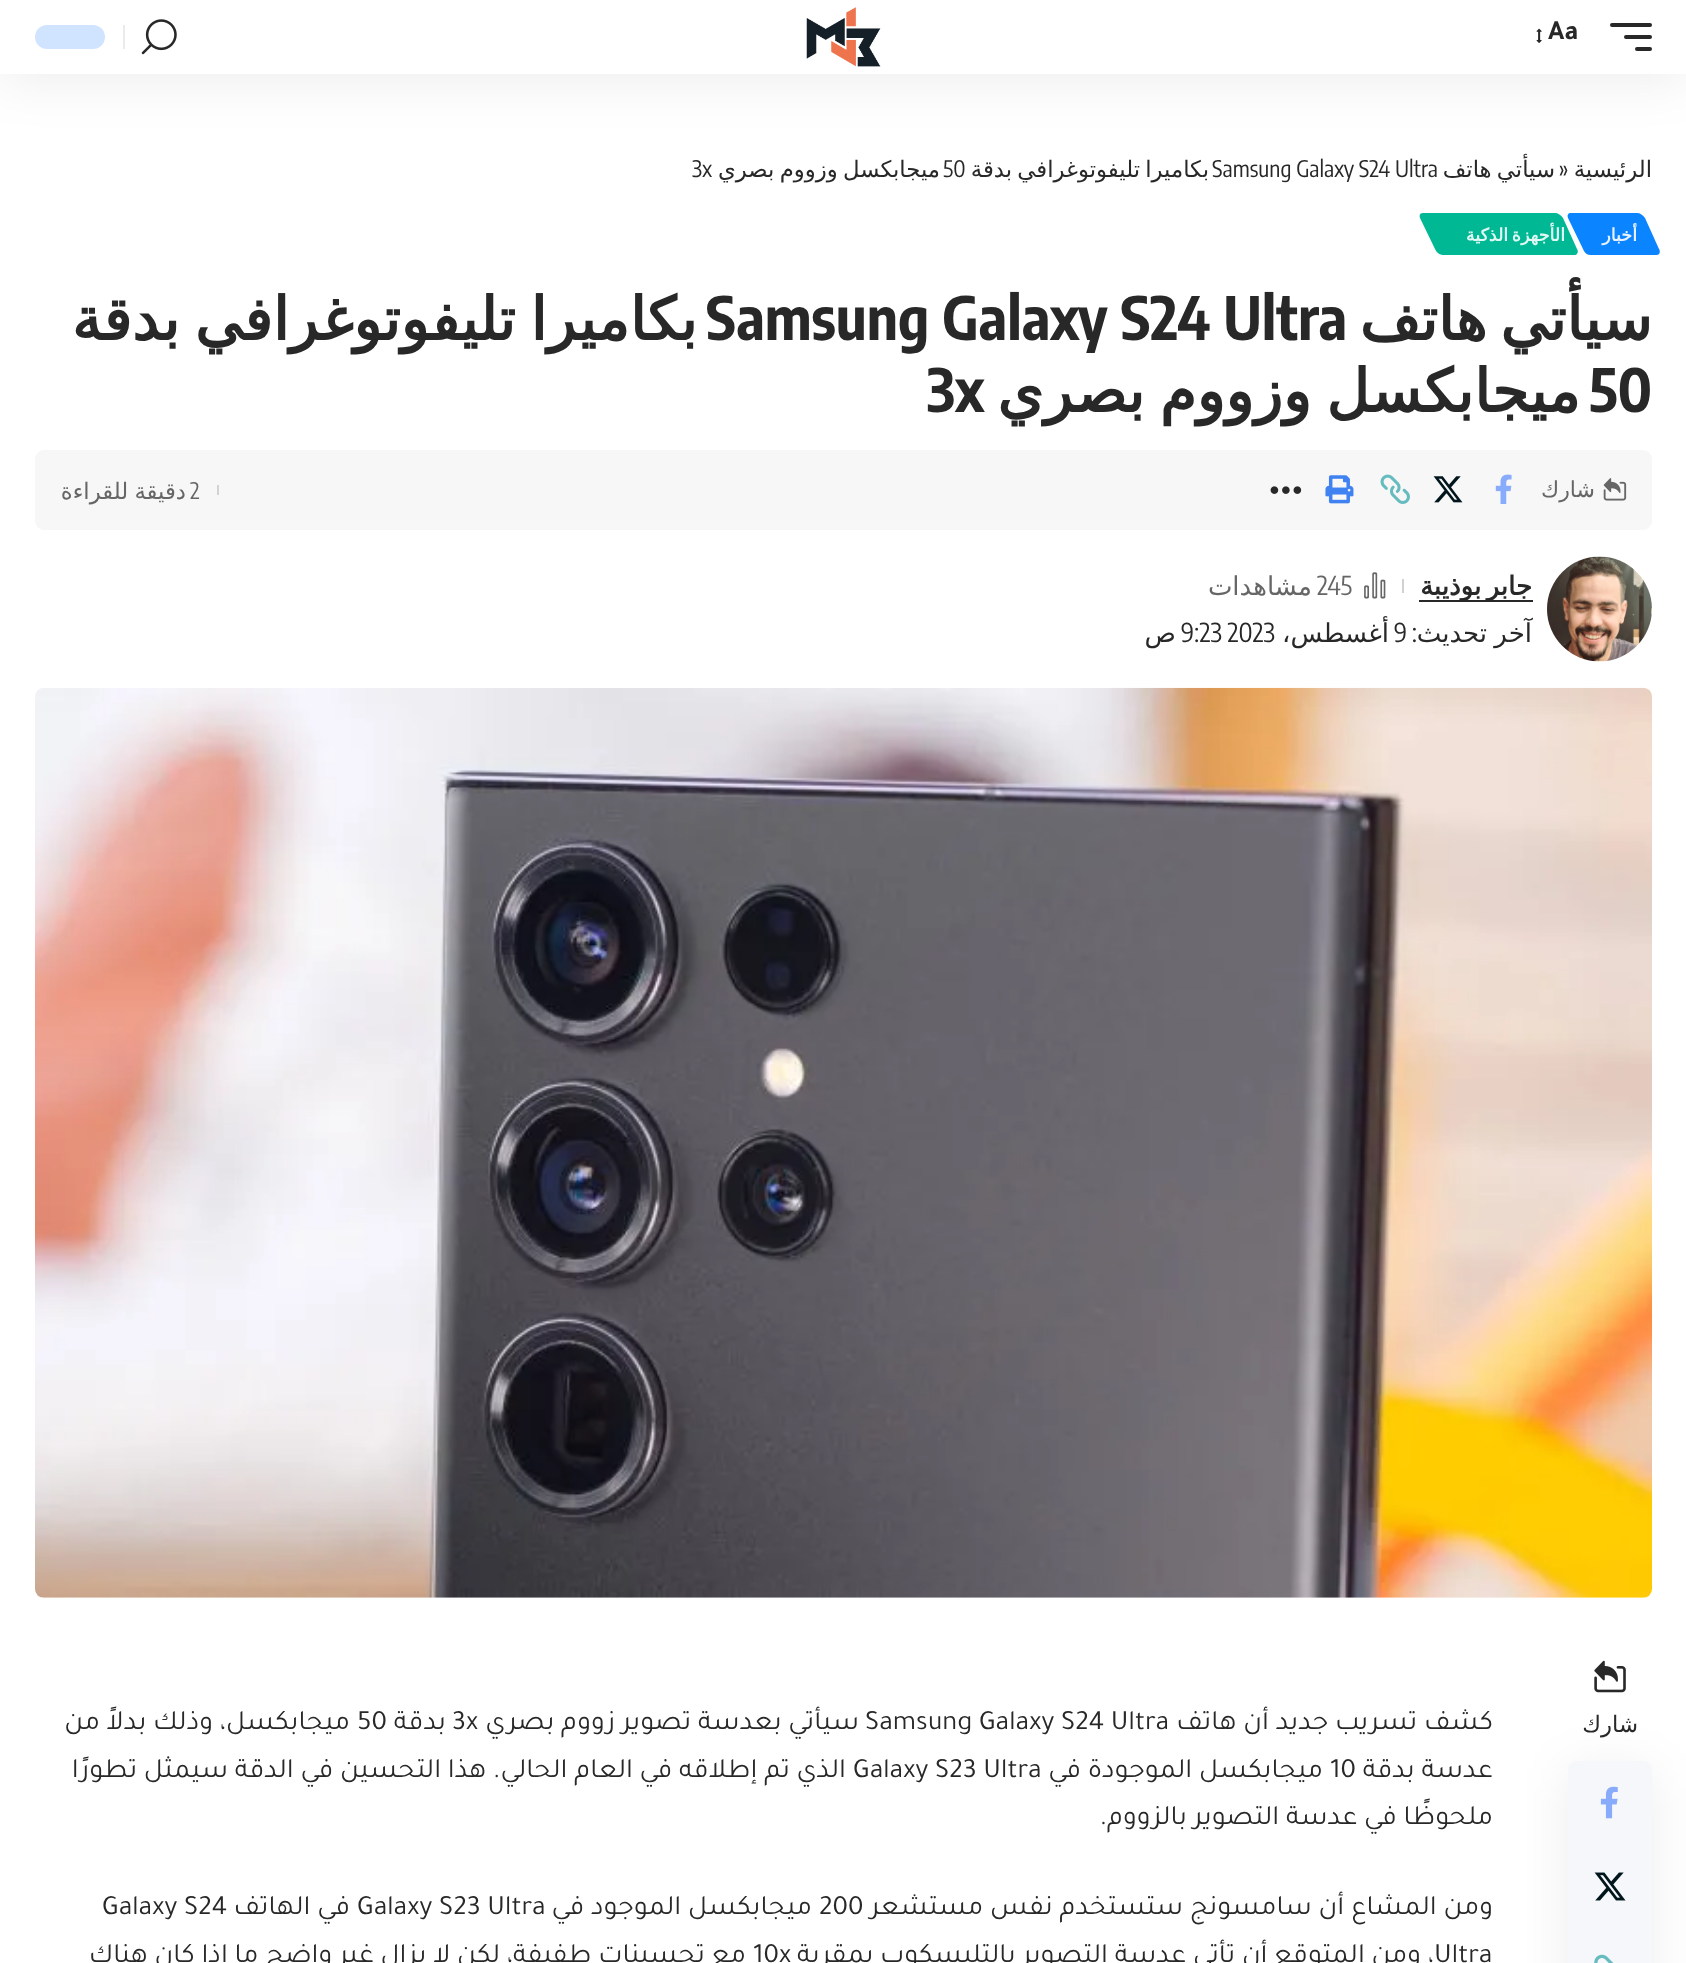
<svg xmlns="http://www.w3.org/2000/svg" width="1686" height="1963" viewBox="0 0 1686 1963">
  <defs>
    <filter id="blur1" x="-50%" y="-200%" width="200%" height="500%"><feGaussianBlur stdDeviation="26"/></filter>
  </defs>
  <rect width="100%" height="100%" fill="#ffffff"/>
  <rect x="0" y="7" width="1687" height="74" fill="#000000" fill-opacity="0.07" filter="url(#blur1)"/>
  <rect x="0" y="0" width="1686" height="74" fill="#ffffff"/>
  <rect x="1610" y="23" width="42" height="4" rx="2" fill="#282828"/>
  <rect x="1624" y="35" width="28" height="4" rx="2" fill="#282828"/>
  <rect x="1635" y="47" width="17" height="4" rx="2" fill="#282828"/>
  <text x="1548" y="39" font-family="Tajawal" font-size="28" font-weight="bold" fill="#282828">Aa</text>
  <image x="1536" y="28" width="6" height="15" href="img1.png"/>
  <image x="806" y="7" width="75" height="60" href="img2.png"/>
  <image x="141" y="19" width="36" height="36" href="img3.png"/>
  <rect x="123" y="25" width="2" height="24" fill="#ebebeb"/>
  <rect x="35" y="25" width="70" height="24" rx="12" fill="#d0e4ff"/>
  <text x="1652" y="177" font-family="DejaVu Sans" font-size="22.75" direction="rtl" fill="#282828">الرئيسية</text>
  <text x="1559" y="177" font-family="Encode Sans Condensed" font-size="22.75" fill="#282828">»</text>
  <text x="1555" y="177" word-spacing="-2" font-family="DejaVu Sans" font-size="22.75" direction="rtl" fill="#282828">سيأتي هاتف</text>
  <text x="1212" y="177" font-family="Encode Sans Condensed" font-size="22.75" fill="#282828">Samsung Galaxy S24 Ultra</text>
  <text x="1209" y="177" word-spacing="-2" font-family="DejaVu Sans" font-size="22.75" direction="rtl" fill="#282828">بكاميرا تليفوتوغرافي بدقة</text>
  <text x="943" y="177" font-family="Encode Sans Condensed" font-size="22.75" fill="#282828">50</text>
  <text x="940" y="177" word-spacing="-2" font-family="DejaVu Sans" font-size="22.75" direction="rtl" fill="#282828">ميجابكسل وزووم بصري</text>
  <text x="692" y="177" font-family="Encode Sans Condensed" font-size="22.75" fill="#282828">3x</text>
  <path d="M1571 213H1637C1640 213 1643 215 1645 218L1659 249C1661 252 1659 255 1657 255H1590C1587 255 1584 252 1583 249L1568 218C1567 215 1568 213 1571 213Z" fill="#0a84ff"/>
  <text x="1637" y="241" font-family="DejaVu Sans" font-size="17.5" font-weight="bold" letter-spacing="1.25" direction="rtl" fill="#e8f1ff">أخبار</text>
  <path d="M1423 213H1555C1558 213 1561 215 1563 218L1577 249C1579 252 1577 255 1575 255H1443C1440 255 1436 252 1435 249L1420 218C1419 215 1420 213 1423 213Z" fill="#00b894"/>
  <text x="1565" y="241" word-spacing="-2" font-family="DejaVu Sans" font-size="17.5" font-weight="bold" letter-spacing="1.25" direction="rtl" fill="#e0f8f3">الأجهزة الذكية</text>
  <text x="1652" y="340" word-spacing="-6" font-family="DejaVu Sans" font-size="59.5" font-weight="bold" direction="rtl" fill="#282828">سيأتي هاتف</text>
  <text x="706" y="340" font-family="Encode Sans Condensed" font-size="59.5" font-weight="bold" fill="#282828">Samsung Galaxy S24 Ultra</text>
  <text x="697" y="340" word-spacing="-4" font-family="DejaVu Sans" font-size="59.5" font-weight="bold" direction="rtl" fill="#282828">بكاميرا تليفوتوغرافي بدقة</text>
  <text x="1589" y="412" font-family="Encode Sans Condensed" font-size="59.5" font-weight="bold" fill="#282828">50</text>
  <text x="1580" y="412" word-spacing="-4" font-family="DejaVu Sans" font-size="59.5" font-weight="bold" direction="rtl" fill="#282828">ميجابكسل وزووم بصري</text>
  <text x="927" y="412" font-family="Encode Sans Condensed" font-size="59.5" font-weight="bold" fill="#282828">3x</text>
  <rect x="35" y="450" width="1617" height="80" rx="9" fill="#f7f7f7"/>
  <image x="1603" y="478" width="24" height="23" href="img4.png"/>
  <text x="1595" y="497" font-family="DejaVu Sans" font-size="22" direction="rtl" fill="#666666">شارك</text>
  <image x="1495" y="474" width="17" height="30" href="img5.png"/>
  <image x="1433" y="476" width="30" height="27" href="img6.png"/>
  <image x="1380" y="474" width="30" height="30" href="img7.png"/>
  <image x="1325" y="475" width="29" height="29" href="img8.png"/>
  <image x="1270" y="486" width="32" height="8" href="img9.png"/>
  <rect x="217" y="485" width="2" height="10" fill="#d3d3d3"/>
  <text x="190" y="499" font-family="Encode Sans Condensed" font-size="22.75" fill="#666666">2</text>
  <text x="186" y="499" word-spacing="-1" font-family="DejaVu Sans" font-size="22.75" direction="rtl" fill="#666666">دقيقة للقراءة</text>
  <image x="1547" y="556" width="105" height="106" href="img10.png"/>
  <rect x="1419" y="600" width="114" height="2" fill="#282828"/>
  <text x="1532" y="595" word-spacing="-3" font-family="DejaVu Sans" font-size="26" font-weight="bold" direction="rtl" fill="#282828">جابر بوذيبة</text>
  <rect x="1402" y="579" width="2" height="14" fill="#d1d1d1"/>
  <image x="1364" y="572" width="22" height="27" href="img11.png"/>
  <text x="1317" y="595" font-family="Encode Sans Condensed" font-size="26" fill="#666666">245</text>
  <text x="1312" y="595" font-family="DejaVu Sans" font-size="26" direction="rtl" fill="#666666">مشاهدات</text>
  <text x="1532" y="642" word-spacing="-1" font-family="DejaVu Sans" font-size="26" direction="rtl" fill="#282828">آخر تحديث</text>
  <text x="1417" y="642" font-family="Encode Sans Condensed" font-size="26" direction="rtl" fill="#282828">:</text>
  <text x="1394" y="642" font-family="Encode Sans Condensed" font-size="26" fill="#282828">9</text>
  <text x="1389" y="642" font-family="DejaVu Sans" font-size="26" direction="rtl" fill="#282828">أغسطس،</text>
  <text x="1181" y="642" font-family="Encode Sans Condensed" font-size="26" fill="#282828">9:23 2023</text>
  <text x="1176" y="642" font-family="DejaVu Sans" font-size="26" direction="rtl" fill="#282828">ص</text>
  <image x="35" y="687" width="1617" height="911" href="img12.png"/>
  <rect x="1568" y="1769" width="84" height="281" rx="9" fill="#000000" fill-opacity="0.07" filter="url(#blur1)"/>
  <rect x="1568" y="1761" width="84" height="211" rx="9" fill="#f5f7fa"/>
  <image x="1600" y="1786" width="18" height="33" href="img13.png"/>
  <image x="1594" y="1872" width="32" height="29" href="img14.png"/>
  <image x="1594" y="1954" width="20" height="9" href="img15.png"/>
  <image x="1594" y="1660" width="32" height="33" href="img16.png"/>
  <text x="1638" y="1732" font-family="DejaVu Sans" font-size="22.75" direction="rtl" fill="#282828">شارك</text>
  <text x="1493" y="1729" font-family="Tajawal" font-size="28" direction="rtl" fill="#282828">كشف تسريب جديد أن هاتف</text>
  <text x="865" y="1729" font-family="Tajawal" font-size="28" fill="#282828">Samsung Galaxy S24 Ultra</text>
  <text x="859" y="1729" font-family="Tajawal" font-size="28" direction="rtl" fill="#282828">سيأتي بعدسة تصوير زووم بصري</text>
  <text x="452" y="1729" font-family="Tajawal" font-size="28" fill="#282828">3x</text>
  <text x="446" y="1729" font-family="Tajawal" font-size="28" direction="rtl" fill="#282828">بدقة</text>
  <text x="357" y="1729" font-family="Tajawal" font-size="28" fill="#282828">50</text>
  <text x="350" y="1729" font-family="Tajawal" font-size="28" direction="rtl" fill="#282828">ميجابكسل، وذلك بدلاً من</text>
  <text x="1493" y="1777" font-family="Tajawal" font-size="28" direction="rtl" fill="#282828">عدسة بدقة</text>
  <text x="1330" y="1777" font-family="Tajawal" font-size="28" fill="#282828">10</text>
  <text x="1323" y="1777" font-family="Tajawal" font-size="28" direction="rtl" fill="#282828">ميجابكسل الموجودة في</text>
  <text x="853" y="1777" font-family="Tajawal" font-size="28" fill="#282828">Galaxy S23 Ultra</text>
  <text x="846" y="1777" font-family="Tajawal" font-size="28" direction="rtl" fill="#282828">الذي تم إطلاقه في العام الحالي. هذا التحسين في الدقة سيمثل تطورًا</text>
  <text x="1493" y="1824" font-family="Tajawal" font-size="28" direction="rtl" fill="#282828">ملحوظًا في عدسة التصوير بالزووم.</text>
  <text x="1493" y="1914" font-family="Tajawal" font-size="28" direction="rtl" fill="#282828">ومن المشاع أن سامسونج ستستخدم نفس مستشعر</text>
  <text x="819" y="1914" font-family="Tajawal" font-size="28" fill="#282828">200</text>
  <text x="812" y="1914" font-family="Tajawal" font-size="28" direction="rtl" fill="#282828">ميجابكسل الموجود في</text>
  <text x="357" y="1914" font-family="Tajawal" font-size="28" fill="#282828">Galaxy S23 Ultra</text>
  <text x="350" y="1914" font-family="Tajawal" font-size="28" direction="rtl" fill="#282828">في الهاتف</text>
  <text x="102" y="1914" font-family="Tajawal" font-size="28" fill="#282828">Galaxy S24</text>
  <text x="1434" y="1962" font-family="Tajawal" font-size="28" fill="#282828">Ultra</text>
  <text x="1434" y="1962" font-family="Tajawal" font-size="28" direction="rtl" fill="#282828">، ومن المتوقع أن تأتي عدسة التصوير بالتليسكوب بمقربة</text>
  <text x="753" y="1962" font-family="Tajawal" font-size="28" fill="#282828">10x</text>
  <text x="746" y="1962" font-family="Tajawal" font-size="28" direction="rtl" fill="#282828">مع تحسينات طفيفة، لكن لا يزال غير واضح ما إذا كان هناك</text>
</svg>
